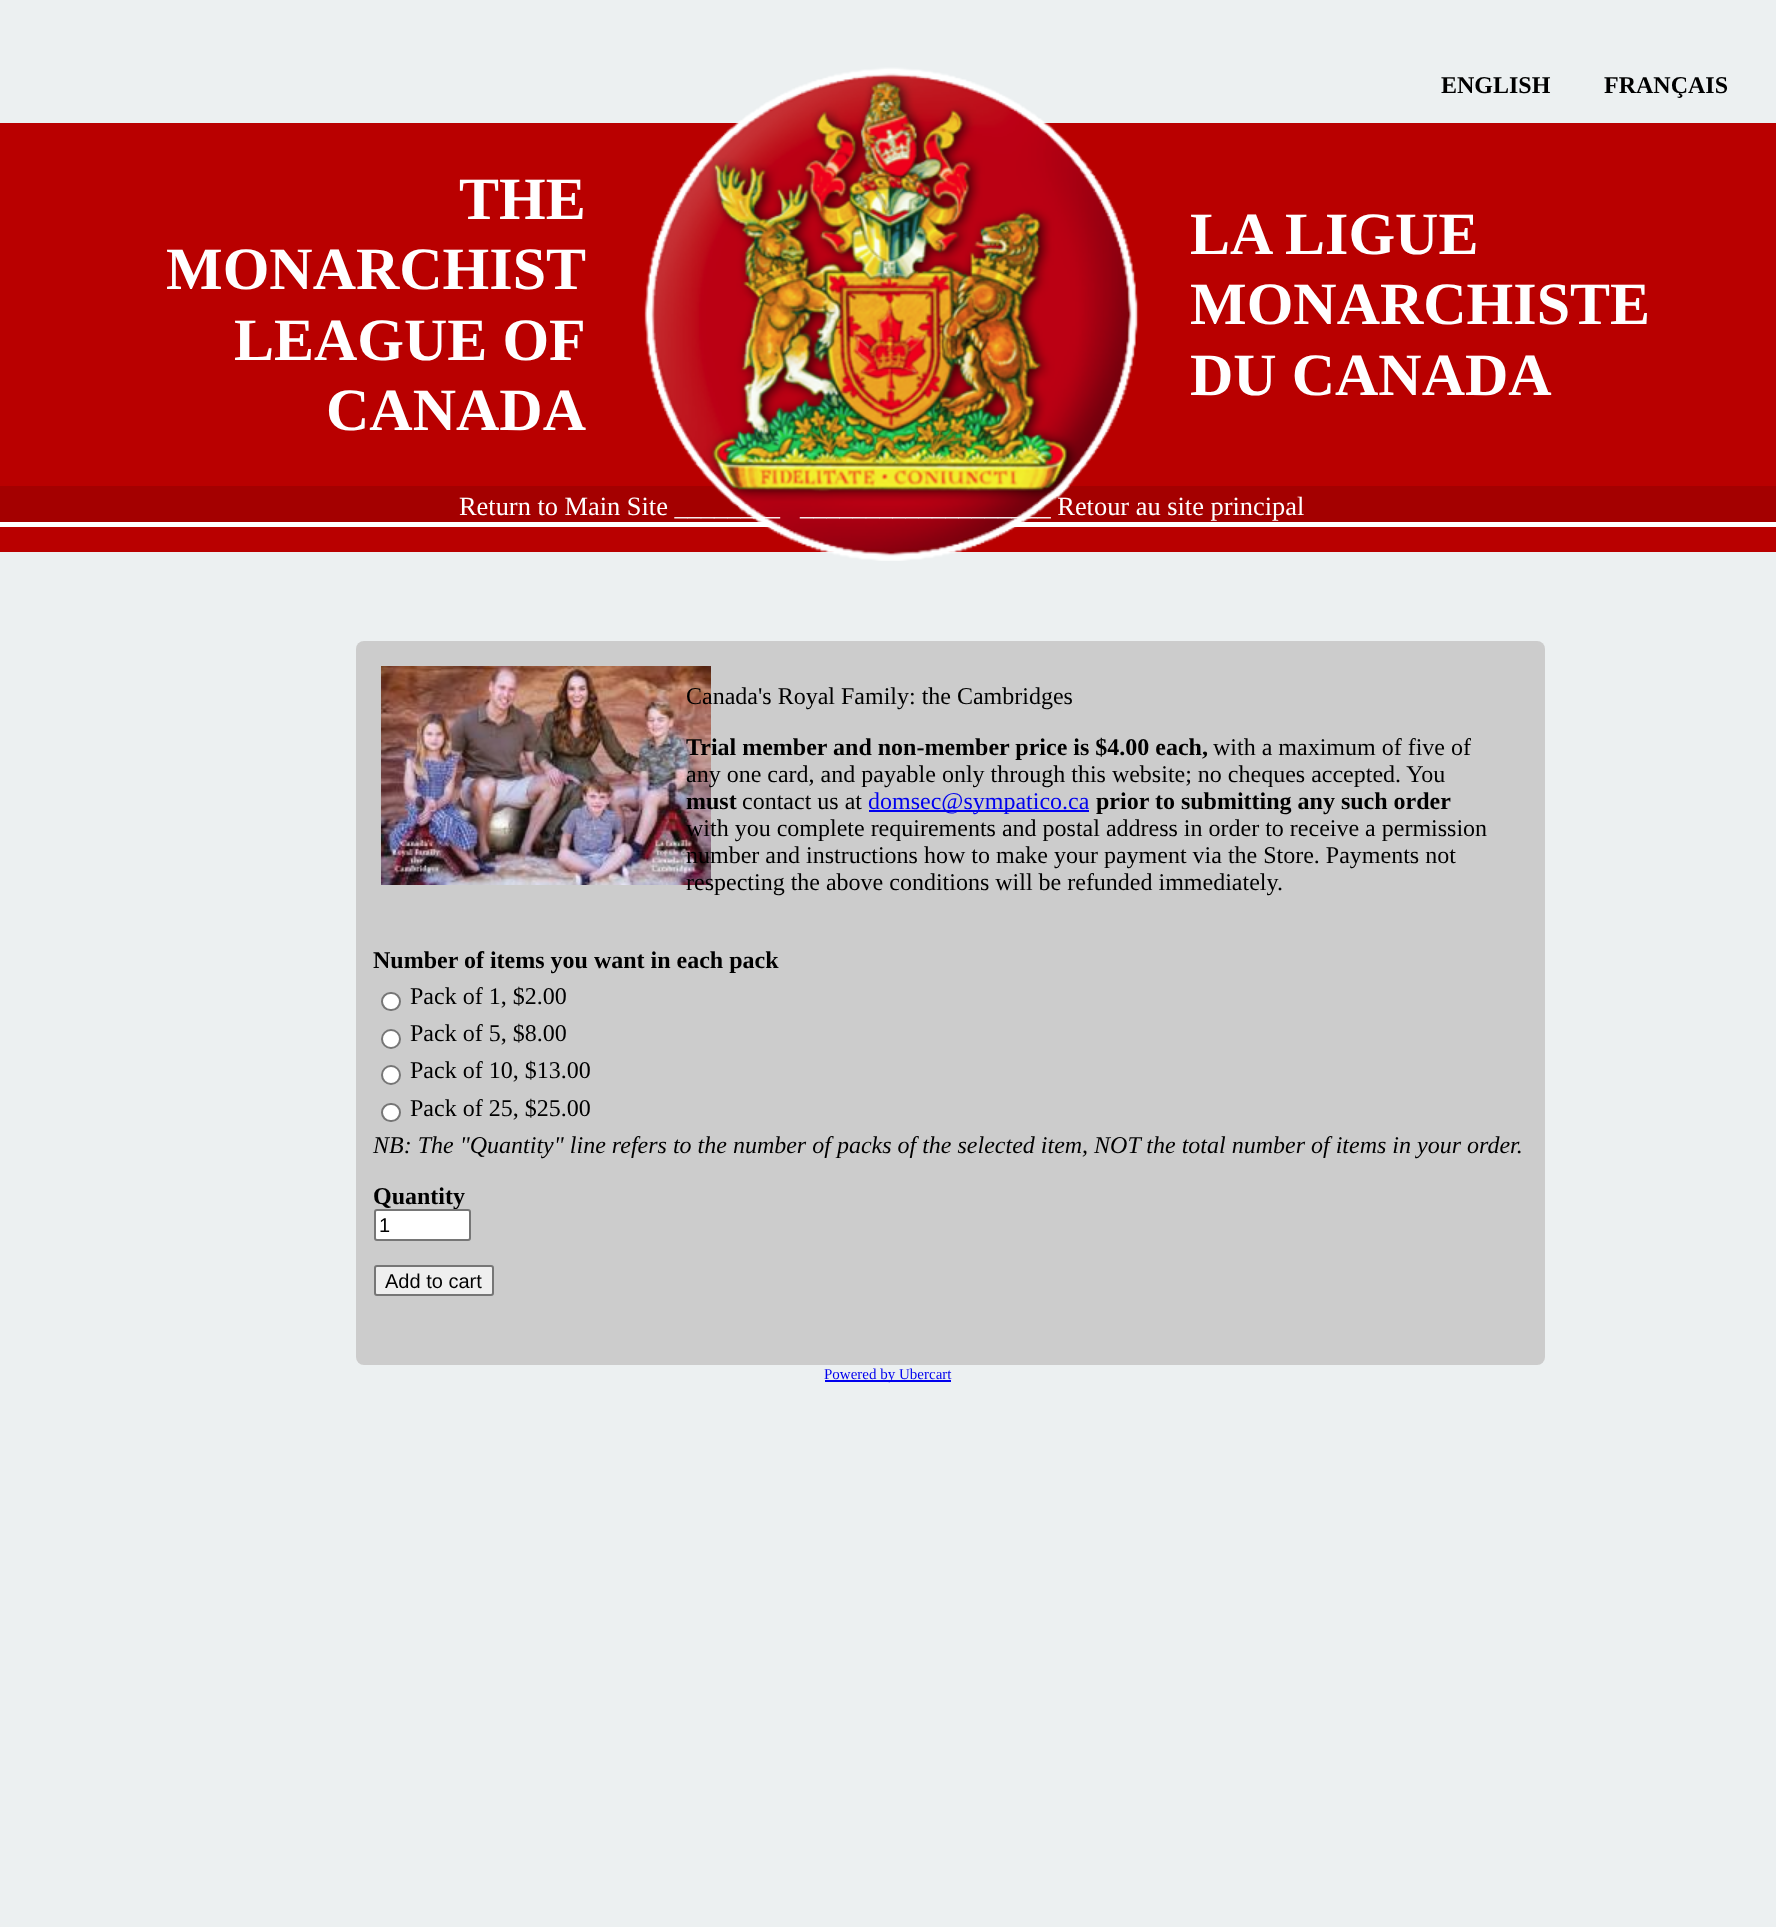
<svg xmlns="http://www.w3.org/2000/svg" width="1776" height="1927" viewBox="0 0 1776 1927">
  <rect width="100%" height="100%" fill="#ecf0f1"/>
  <text x="1441" y="93" font-family="Liberation Serif" font-size="24" font-weight="bold" fill="#000000">ENGLISH</text>
  <text x="1604" y="93" font-family="Liberation Serif" font-size="24" font-weight="bold" fill="#000000">FRANÇAIS</text>
  <rect x="0" y="123" width="1776" height="363" fill="#b90000"/>
  <text x="459" y="219" font-family="Liberation Serif" font-size="60" font-weight="bold" fill="#ffffff">THE</text>
  <text x="166" y="289" font-family="Liberation Serif" font-size="60" font-weight="bold" fill="#ffffff">MONARCHIST</text>
  <text x="234" y="360" font-family="Liberation Serif" font-size="60" font-weight="bold" fill="#ffffff">LEAGUE OF</text>
  <text x="326" y="430" font-family="Liberation Serif" font-size="60" font-weight="bold" fill="#ffffff">CANADA</text>
  <rect x="0" y="486" width="1776" height="36" fill="#a40000"/>
  <rect x="0" y="527" width="1776" height="25" fill="#b90000"/>
  <rect x="0" y="522" width="1776" height="5" fill="#ffffff"/>
  <image x="644" y="67" width="495" height="494" href="img1.png"/>
  <text x="1190" y="254" font-family="Liberation Serif" font-size="60" font-weight="bold" fill="#ffffff">LA LIGUE</text>
  <text x="1190" y="324" font-family="Liberation Serif" font-size="60" font-weight="bold" fill="#ffffff">MONARCHISTE</text>
  <text x="1190" y="395" font-family="Liberation Serif" font-size="60" font-weight="bold" fill="#ffffff">DU CANADA</text>
  <text x="459" y="515" font-family="Liberation Serif" font-size="26.4" fill="#ffffff">Return to Main Site ________</text>
  <text x="800" y="515" font-family="Liberation Serif" font-size="26.4" fill="#ffffff">___________________ Retour au site principal</text>
  <rect x="356" y="641" width="1189" height="724" rx="8" fill="#cccccc"/>
  <image x="381" y="666" width="330" height="219" href="img2.png"/>
  <text x="686" y="704" font-family="Liberation Serif" font-size="24" fill="#000000">Canada's Royal Family: the Cambridges</text>
  <text x="686" y="755" font-family="Liberation Serif" font-size="24" font-weight="bold" fill="#000000">Trial member and non-member price is $4.00 each,</text>
  <text x="1213" y="755" font-family="Liberation Serif" font-size="24" fill="#000000">with a maximum of five of</text>
  <text x="686" y="782" font-family="Liberation Serif" font-size="24" fill="#000000">any one card, and payable only through this website; no cheques accepted. You</text>
  <text x="686" y="809" font-family="Liberation Serif" font-size="24" font-weight="bold" fill="#000000">must</text>
  <text x="742" y="809" font-family="Liberation Serif" font-size="24" fill="#000000">contact us at</text>
  <rect x="869" y="810" width="220" height="2" fill="#0000ee"/>
  <text x="868" y="809" font-family="Liberation Serif" font-size="24" fill="#0000ee">domsec@sympatico.ca</text>
  <text x="1096" y="809" font-family="Liberation Serif" font-size="24" font-weight="bold" fill="#000000">prior to submitting any such order</text>
  <text x="686" y="836" font-family="Liberation Serif" font-size="24" fill="#000000">with you complete requirements and postal address in order to receive a permission</text>
  <text x="686" y="863" font-family="Liberation Serif" font-size="24" fill="#000000">number and instructions how to make your payment via the Store. Payments not</text>
  <text x="686" y="890" font-family="Liberation Serif" font-size="24" fill="#000000">respecting the above conditions will be refunded immediately.</text>
  <text x="373" y="968" font-family="Liberation Serif" font-size="24" font-weight="bold" fill="#000000">Number of items you want in each pack</text>
  <rect x="382" y="993" width="18" height="17" rx="8.5" fill="#ffffff" stroke="#767676" stroke-width="2"/>
  <text x="410" y="1004" font-family="Liberation Serif" font-size="24" fill="#000000">Pack of 1, $2.00</text>
  <circle cx="391" cy="1039" r="9" fill="#ffffff" stroke="#767676" stroke-width="2"/>
  <text x="410" y="1041" font-family="Liberation Serif" font-size="24" fill="#000000">Pack of 5, $8.00</text>
  <circle cx="391" cy="1075" r="9" fill="#ffffff" stroke="#767676" stroke-width="2"/>
  <text x="410" y="1078" font-family="Liberation Serif" font-size="24" fill="#000000">Pack of 10, $13.00</text>
  <rect x="382" y="1104" width="18" height="17" rx="8.5" fill="#ffffff" stroke="#767676" stroke-width="2"/>
  <text x="410" y="1116" font-family="Liberation Serif" font-size="24" fill="#000000">Pack of 25, $25.00</text>
  <text x="373" y="1153" font-family="Liberation Serif" font-size="24" font-style="italic" fill="#000000">NB: The "Quantity" line refers to the number of packs of the selected item, NOT the total number of items in your order.</text>
  <text x="373" y="1204" font-family="Liberation Serif" font-size="24" font-weight="bold" fill="#000000">Quantity</text>
  <rect x="375" y="1210" width="95" height="30" rx="2" fill="#ffffff" stroke="#767676" stroke-width="2"/>
  <text x="379" y="1232" font-family="Liberation Sans" font-size="20" fill="#000000">1</text>
  <rect x="375" y="1266" width="118" height="29" rx="2" fill="#efefef" stroke="#767676" stroke-width="2"/>
  <text x="385" y="1288" font-family="Liberation Sans" font-size="20" fill="#000000">Add to cart</text>
  <rect x="825" y="1380" width="126" height="2" fill="#0000ee"/>
  <text x="824" y="1379" font-family="Liberation Serif" font-size="15" fill="#0000ee">Powered by Ubercart</text>
</svg>
